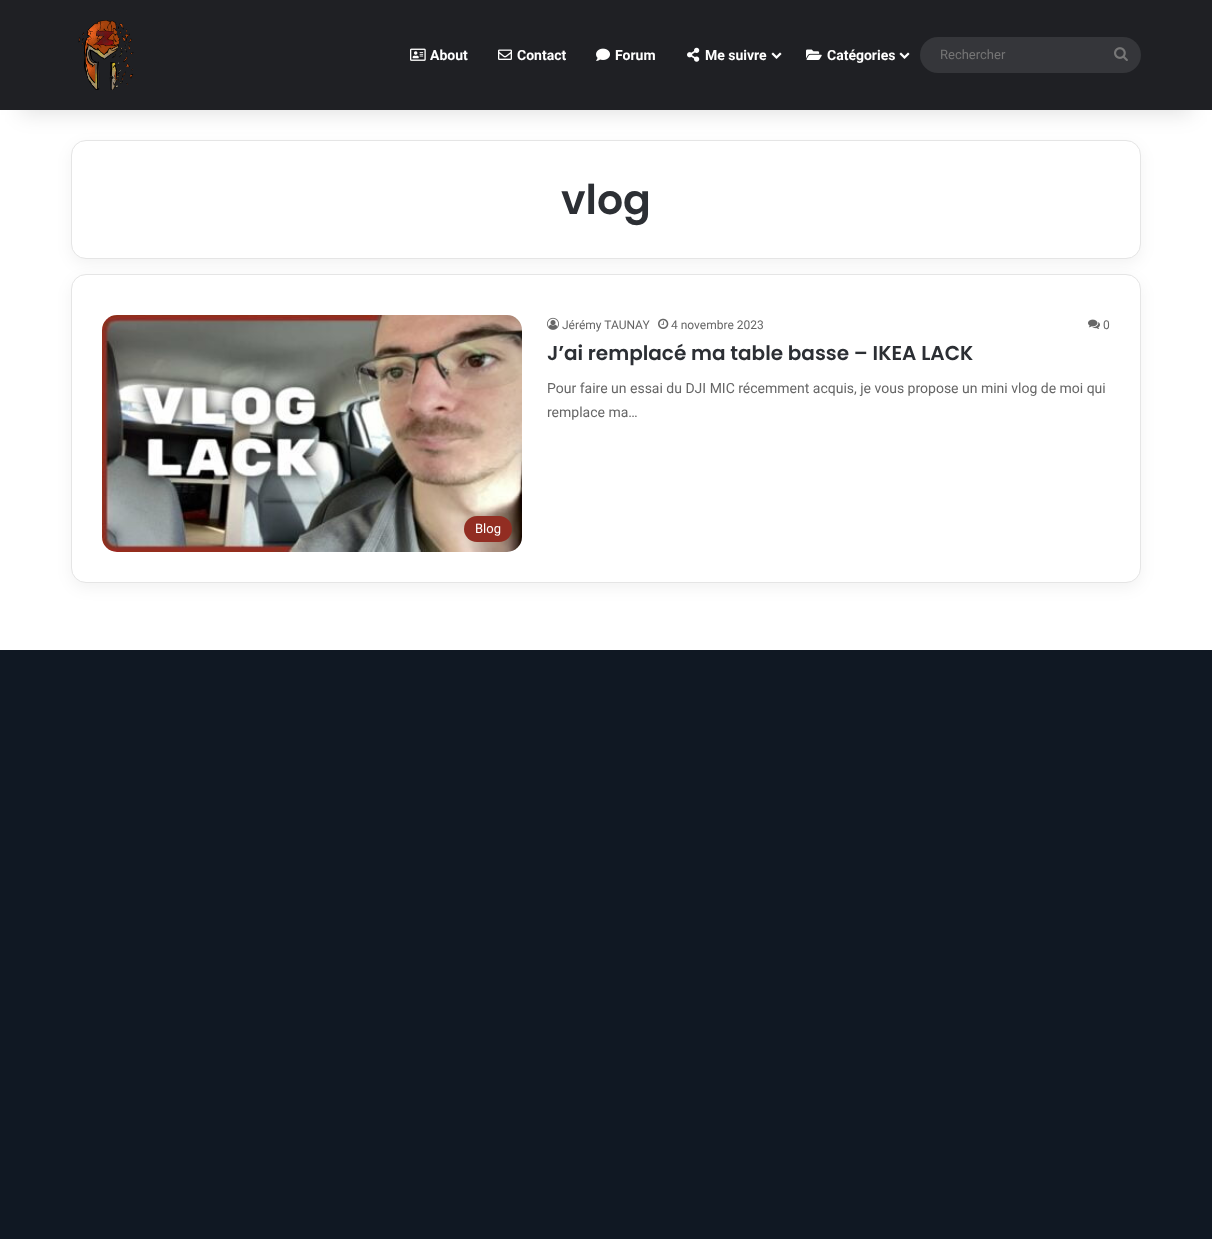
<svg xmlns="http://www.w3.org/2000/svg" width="1212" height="1239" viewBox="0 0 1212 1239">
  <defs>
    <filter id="blur1" x="-50%" y="-200%" width="200%" height="500%"><feGaussianBlur stdDeviation="7.5"/></filter>
    <filter id="blur2" x="-50%" y="-200%" width="200%" height="500%"><feGaussianBlur stdDeviation="10"/></filter>
  </defs>
  <rect width="100%" height="100%" fill="#101823"/>
  <rect x="0" y="110" width="1212" height="540" fill="#ffffff"/>
  <rect x="71" y="145" width="1070" height="119" rx="15" fill="#000000" fill-opacity="0.05" filter="url(#blur1)"/>
  <rect x="71.5" y="140.5" width="1069" height="118" rx="14.5" fill="#ffffff" stroke="#e5e5e5"/>
  <rect x="20" y="45" width="1172" height="70" fill="#000000" fill-opacity="0.1" filter="url(#blur2)"/>
  <rect x="0" y="0" width="1212" height="110" fill="#1f2024"/>
  <image x="78" y="20" width="56" height="70" href="img1.png"/>
  <image x="410" y="48" width="16" height="13" href="img2.png"/>
  <text x="430" y="60" font-family="Roboto" font-size="14" font-weight="bold" fill="#ffffff">About</text>
  <image x="498" y="49" width="14" height="11" href="img3.png"/>
  <text x="517" y="60" font-family="Roboto" font-size="14" font-weight="bold" fill="#ffffff">Contact</text>
  <image x="596" y="48" width="14" height="13" href="img4.png"/>
  <text x="615" y="60" font-family="Roboto" font-size="14" font-weight="bold" fill="#ffffff">Forum</text>
  <image x="687" y="47" width="13" height="15" href="img5.png"/>
  <text x="705" y="60" font-family="Roboto" font-size="14" font-weight="bold" fill="#ffffff">Me suivre</text>
  <image x="771" y="52" width="11" height="7" href="img6.png"/>
  <image x="806" y="49" width="16" height="11" href="img7.png"/>
  <text x="827" y="60" font-family="Roboto" font-size="14" font-weight="bold" fill="#ffffff">Catégories</text>
  <image x="899" y="52" width="11" height="7" href="img6.png"/>
  <rect x="920" y="37" width="221" height="36" rx="18" fill="#35363a"/>
  <text x="940" y="59" font-family="Roboto" font-size="13" fill="#757575">Rechercher</text>
  <image x="1114" y="47" width="14" height="14" href="img8.png"/>
  <text x="561" y="214" font-family="Poppins" font-size="41" font-weight="600" fill="#2c2f34">vlog</text>
  <rect x="71" y="279" width="1070" height="309" rx="15" fill="#000000" fill-opacity="0.05" filter="url(#blur1)"/>
  <rect x="71.5" y="274.5" width="1069" height="308" rx="14.5" fill="#ffffff" stroke="#e5e5e5"/>
  <image x="547" y="317" width="12" height="13" href="img9.png"/>
  <text x="562" y="329" font-family="Roboto" font-size="12" fill="#666666">Jérémy TAUNAY</text>
  <image x="658" y="318" width="11" height="11" href="img10.png"/>
  <text x="671" y="329" font-family="Roboto" font-size="12" fill="#666666">4 novembre 2023</text>
  <image x="1088" y="319" width="12" height="10" href="img11.png"/>
  <text x="1103" y="329" font-family="Roboto" font-size="12" fill="#666666">0</text>
  <text x="547" y="360" font-family="Poppins" font-size="20" font-weight="600" fill="#2c2f34">J’ai remplacé ma table basse – IKEA LACK</text>
  <text x="547" y="393" font-family="Roboto" font-size="14" fill="#666666">Pour faire un essai du DJI MIC récemment acquis, je vous propose un mini vlog de moi qui</text>
  <text x="547" y="417" font-family="Roboto" font-size="14" fill="#666666">remplace ma…</text>
  <image x="102" y="315" width="420" height="237" href="img12.png"/>
  <rect x="464" y="516" width="48" height="26" rx="13" fill="#922d22"/>
  <text x="475" y="533" font-family="Roboto" font-size="13" fill="#ffffff">Blog</text>
</svg>
